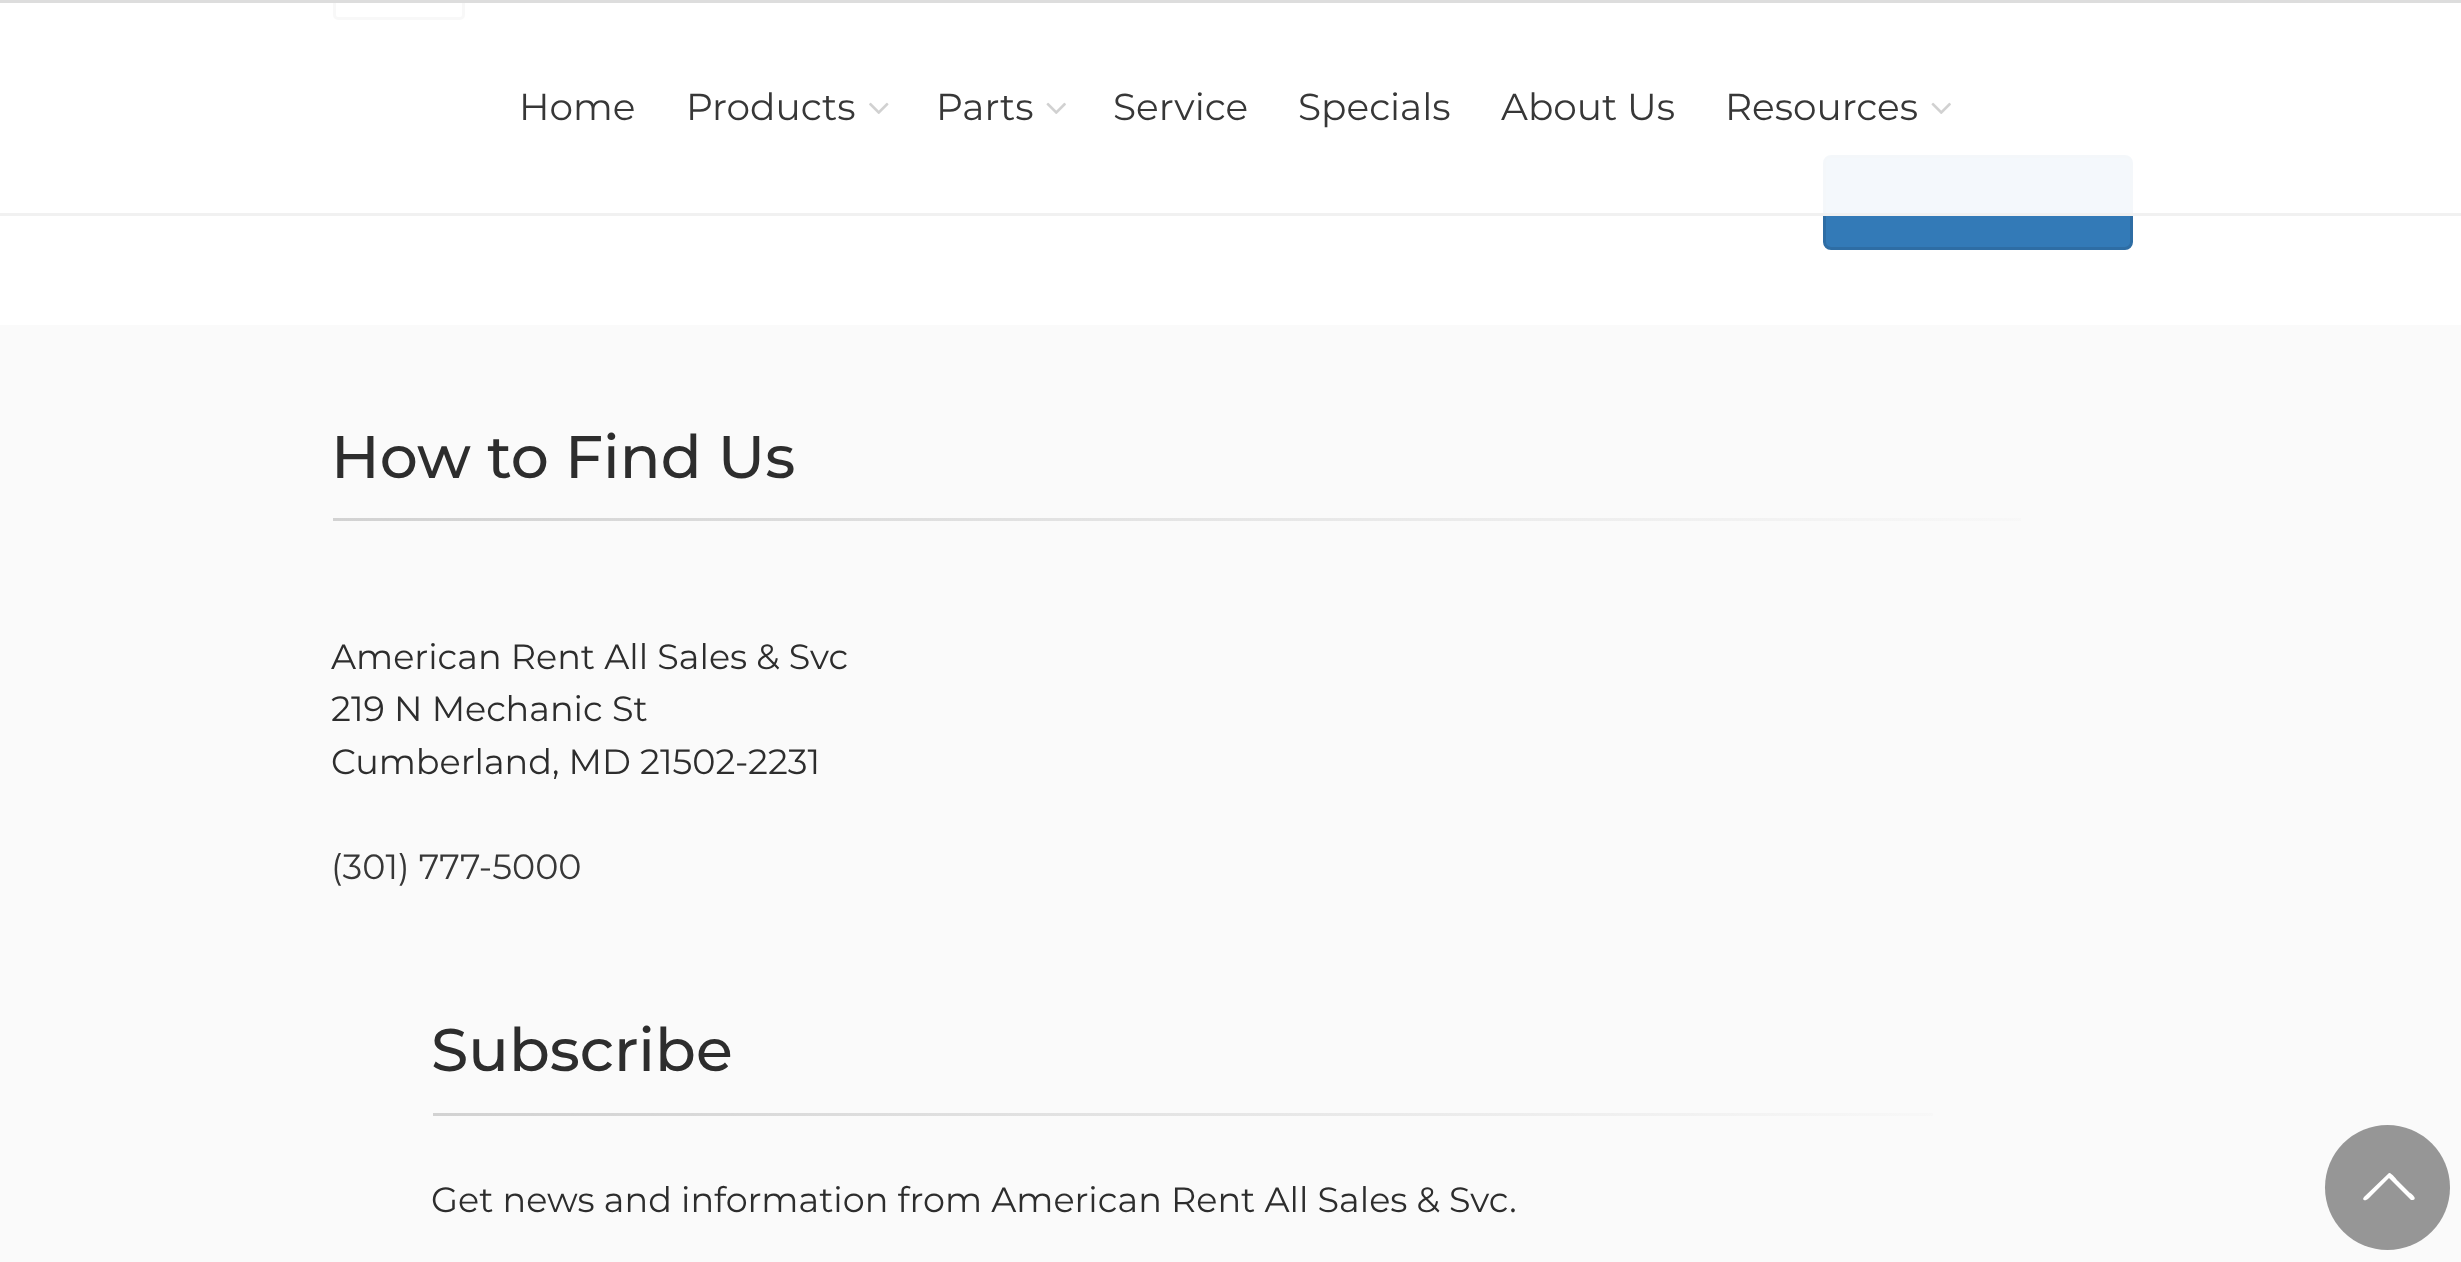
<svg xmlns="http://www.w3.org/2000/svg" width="2461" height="1262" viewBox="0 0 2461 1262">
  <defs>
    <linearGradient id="g1" gradientUnits="userSpaceOnUse" x1="333" y1="519" x2="2133" y2="519"><stop offset="0" stop-color="#d2d2d2"/><stop offset="1" stop-color="#fafafa"/></linearGradient>
    <linearGradient id="g2" gradientUnits="userSpaceOnUse" x1="433" y1="1114" x2="2033" y2="1114"><stop offset="0" stop-color="#d2d2d2"/><stop offset="1" stop-color="#fafafa"/></linearGradient>
  </defs>
  <rect width="100%" height="100%" fill="#ffffff"/>
  <rect x="334.5" y="-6.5" width="129" height="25" rx="3.5" fill="none" stroke="#767676" stroke-width="3"/>
  <rect x="333" y="183" width="1490" height="3" fill="#eeeeee"/>
  <rect x="1824.5" y="156.5" width="307" height="92" rx="6.5" fill="#337ab7" stroke="#2e6da4" stroke-width="3"/>
  <rect x="333" y="3" width="1800" height="210" fill="#ffffff" fill-opacity="0.95"/>
  <rect x="0" y="0" width="2461" height="3" fill="#dddddd"/>
  <rect x="0" y="213" width="2461" height="3" fill="#f1f1f1"/>
  <text x="519" y="120" font-family="Montserrat" font-size="37.5" fill="#373737">Home</text>
  <text x="686" y="120" font-family="Montserrat" font-size="37.5" fill="#373737">Products</text>
  <image x="869" y="102" width="20" height="12" href="img1.png"/>
  <text x="936" y="120" font-family="Montserrat" font-size="37.5" fill="#373737">Parts</text>
  <image x="1046" y="102" width="20" height="12" href="img2.png"/>
  <text x="1113" y="120" font-family="Montserrat" font-size="37.5" fill="#373737">Service</text>
  <text x="1298" y="120" font-family="Montserrat" font-size="37.5" fill="#373737">Specials</text>
  <text x="1501" y="120" font-family="Montserrat" font-size="37.5" fill="#373737">About Us</text>
  <text x="1725" y="120" font-family="Montserrat" font-size="37.5" fill="#373737">Resources</text>
  <image x="1931" y="102" width="20" height="12" href="img2.png"/>
  <rect x="0" y="325" width="2461" height="937" fill="#fafafa"/>
  <text x="331" y="478" font-family="Montserrat" font-size="60" font-weight="500" fill="#2d2d2d">How to Find Us</text>
  <rect x="333" y="518" width="1688" height="3" fill="url(#g1)"/>
  <text x="331" y="669" font-family="Montserrat" font-size="35" fill="#2d2d2d">American Rent All Sales &amp; Svc</text>
  <text x="331" y="721" font-family="Montserrat" font-size="35" fill="#2d2d2d">219 N Mechanic St</text>
  <text x="331" y="774" font-family="Montserrat" font-size="35" fill="#2d2d2d">Cumberland, MD 21502-2231</text>
  <text x="331" y="879" font-family="Montserrat" font-size="35" fill="#373737">(301) 777-5000</text>
  <text x="431" y="1071" font-family="Montserrat" font-size="60" font-weight="500" fill="#2d2d2d">Subscribe</text>
  <rect x="433" y="1113" width="1500" height="3" fill="url(#g2)"/>
  <text x="431" y="1212" font-family="Montserrat" font-size="35" fill="#2d2d2d">Get news and information from American Rent All Sales &amp; Svc.</text>
  <circle cx="2387.5" cy="1187.5" r="62.5" fill="#969696"/>
  <path d="M2411 1200L2389 1178L2371 1196C2370 1197 2365 1203 2363 1199L2364 1197L2389 1173C2391 1172 2397 1180 2398 1181L2410 1193C2411 1193 2418 1199 2413 1200Z" fill="#ffffff"/>
</svg>
